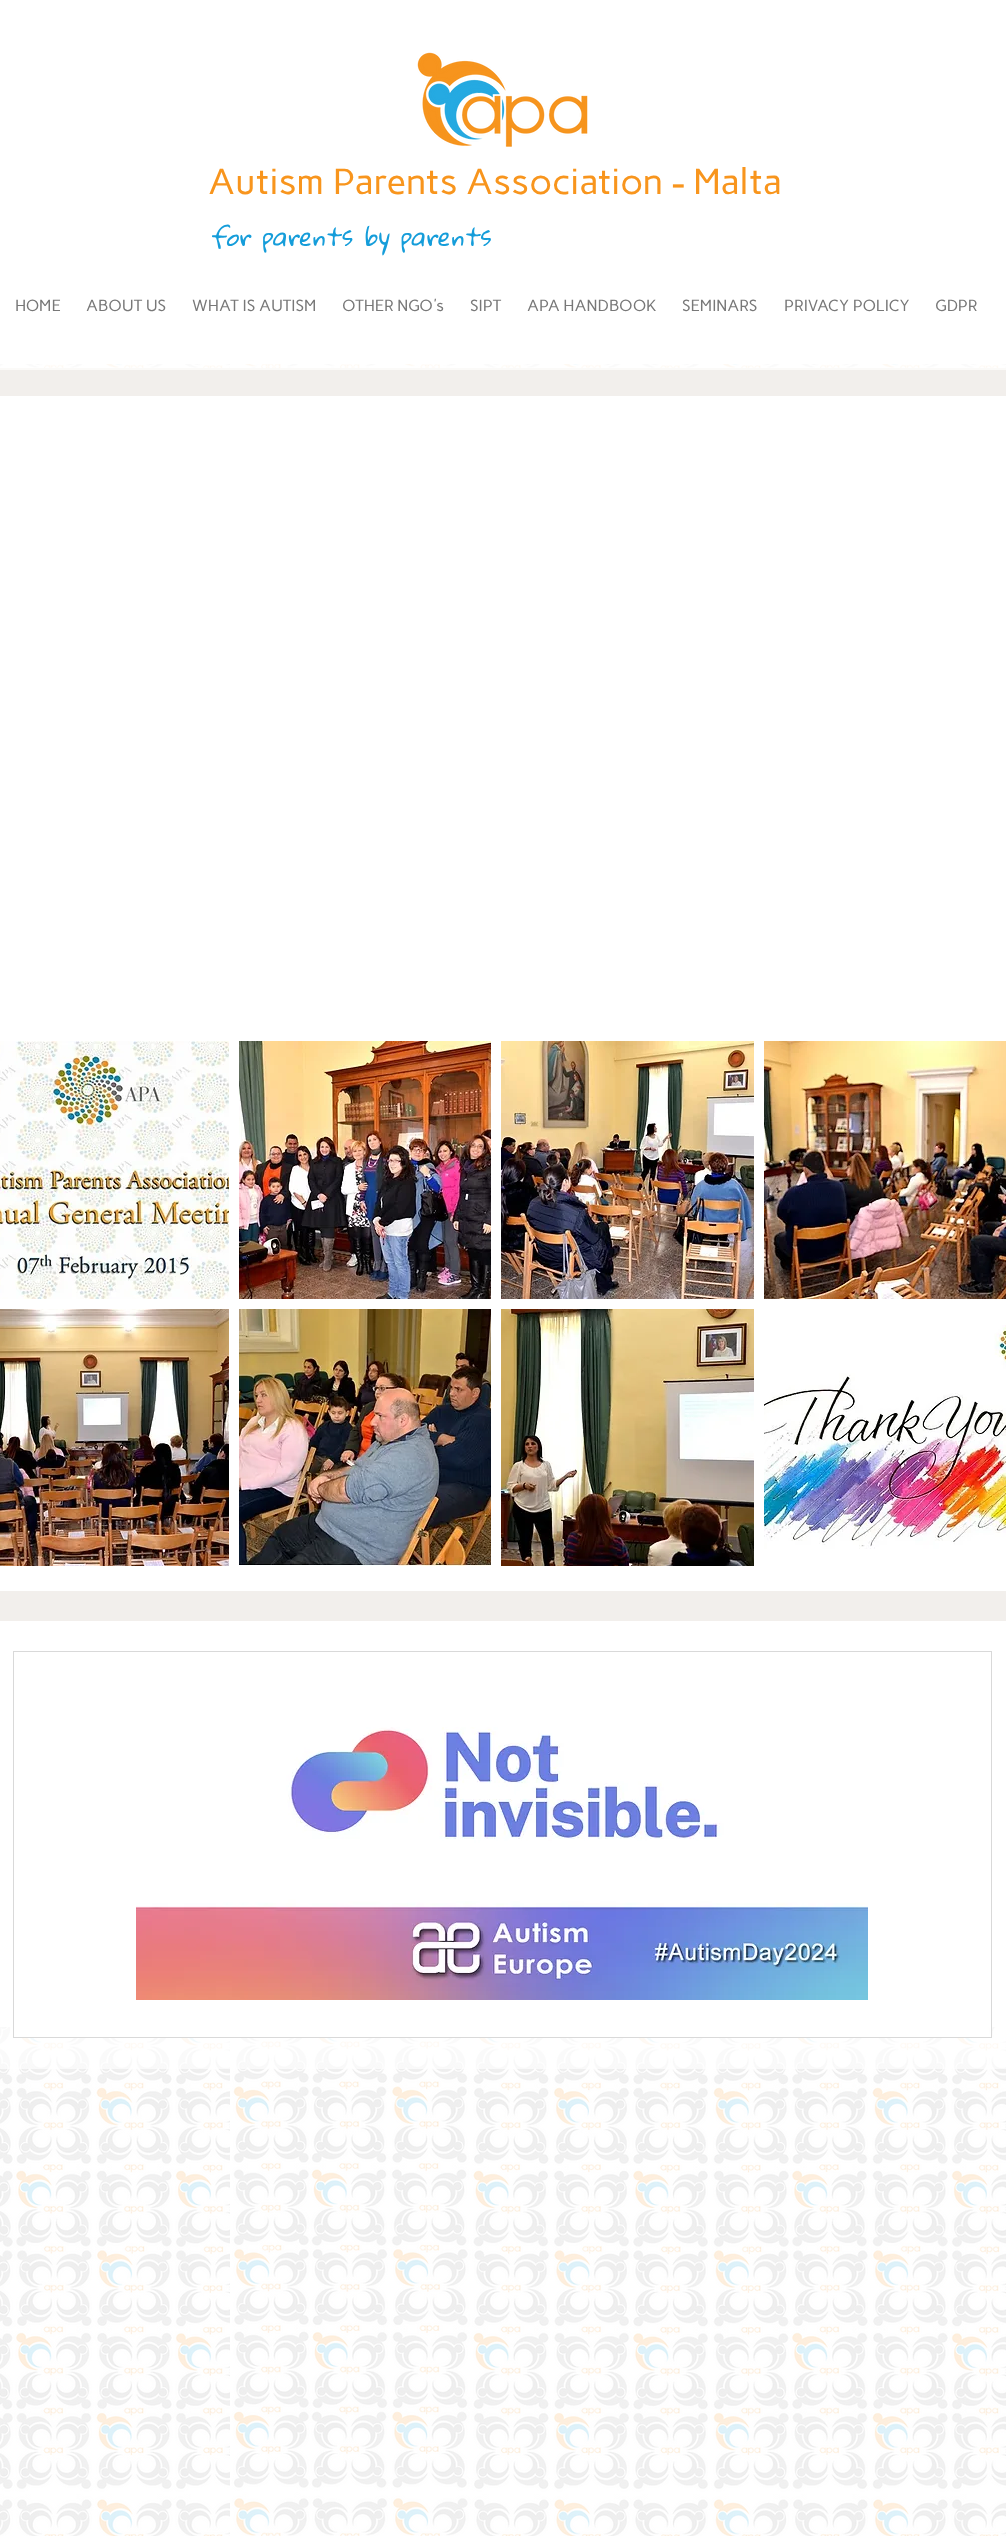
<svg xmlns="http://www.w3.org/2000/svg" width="1006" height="2536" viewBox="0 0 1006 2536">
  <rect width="100%" height="100%" fill="#ffffff"/>
  <image x="417" y="52" width="171" height="95" href="img1.png"/>
  <text x="208" y="194" font-family="Carme" font-size="36" fill="#f8951d">Autism Parents Association - Malta</text>
  <text x="209" y="246" font-family="Gloria Hallelujah" font-size="24" font-style="italic" fill="#159dda">for parents by parents</text>
  <image x="0" y="364" width="1006" height="2172" href="img11.png"/>
  <rect x="0" y="368" width="1006" height="1253" fill="#f2efec"/>
  <rect x="0" y="364" width="1006" height="6" fill="#ffffff" fill-opacity="0.65"/>
  <text x="15" y="311" font-family="Carme" font-size="16" fill="#787878">HOME</text>
  <text x="86" y="311" font-family="Carme" font-size="16" fill="#787878">ABOUT US</text>
  <text x="192" y="311" font-family="Carme" font-size="16" fill="#787878">WHAT IS AUTISM</text>
  <text x="342" y="311" font-family="Carme" font-size="16" fill="#787878">OTHER NGO's</text>
  <text x="470" y="311" font-family="Carme" font-size="16" fill="#787878">SIPT</text>
  <text x="527" y="311" font-family="Carme" font-size="16" fill="#787878">APA HANDBOOK</text>
  <text x="682" y="311" font-family="Carme" font-size="16" fill="#787878">SEMINARS</text>
  <text x="784" y="311" font-family="Carme" font-size="16" fill="#787878">PRIVACY POLICY</text>
  <text x="935" y="311" font-family="Carme" font-size="16" fill="#787878">GDPR</text>
  <rect x="0" y="396" width="1006" height="1195" fill="#ffffff"/>
  <image x="0" y="1041" width="229" height="258" href="img2.png"/>
  <image x="239" y="1041" width="252" height="258" href="img3.png"/>
  <image x="501" y="1041" width="253" height="258" href="img4.png"/>
  <image x="764" y="1041" width="242" height="258" href="img5.png"/>
  <image x="0" y="1309" width="229" height="257" href="img6.png"/>
  <image x="239" y="1309" width="252" height="257" href="img7.png"/>
  <image x="501" y="1309" width="253" height="257" href="img8.png"/>
  <image x="764" y="1325" width="242" height="224" href="img9.png"/>
  <rect x="0" y="1621" width="1006" height="406" fill="#ffffff"/>
  <rect x="0" y="2027" width="1006" height="42" fill="#ffffff" fill-opacity="0.65"/>
  <rect x="18" y="2027" width="969" height="10" fill="#ffffff"/>
  <rect x="13.5" y="1651.5" width="978" height="386" fill="none" stroke="#d9d9d9"/>
  <image x="136" y="1727" width="732" height="273" href="img10.png"/>
</svg>
